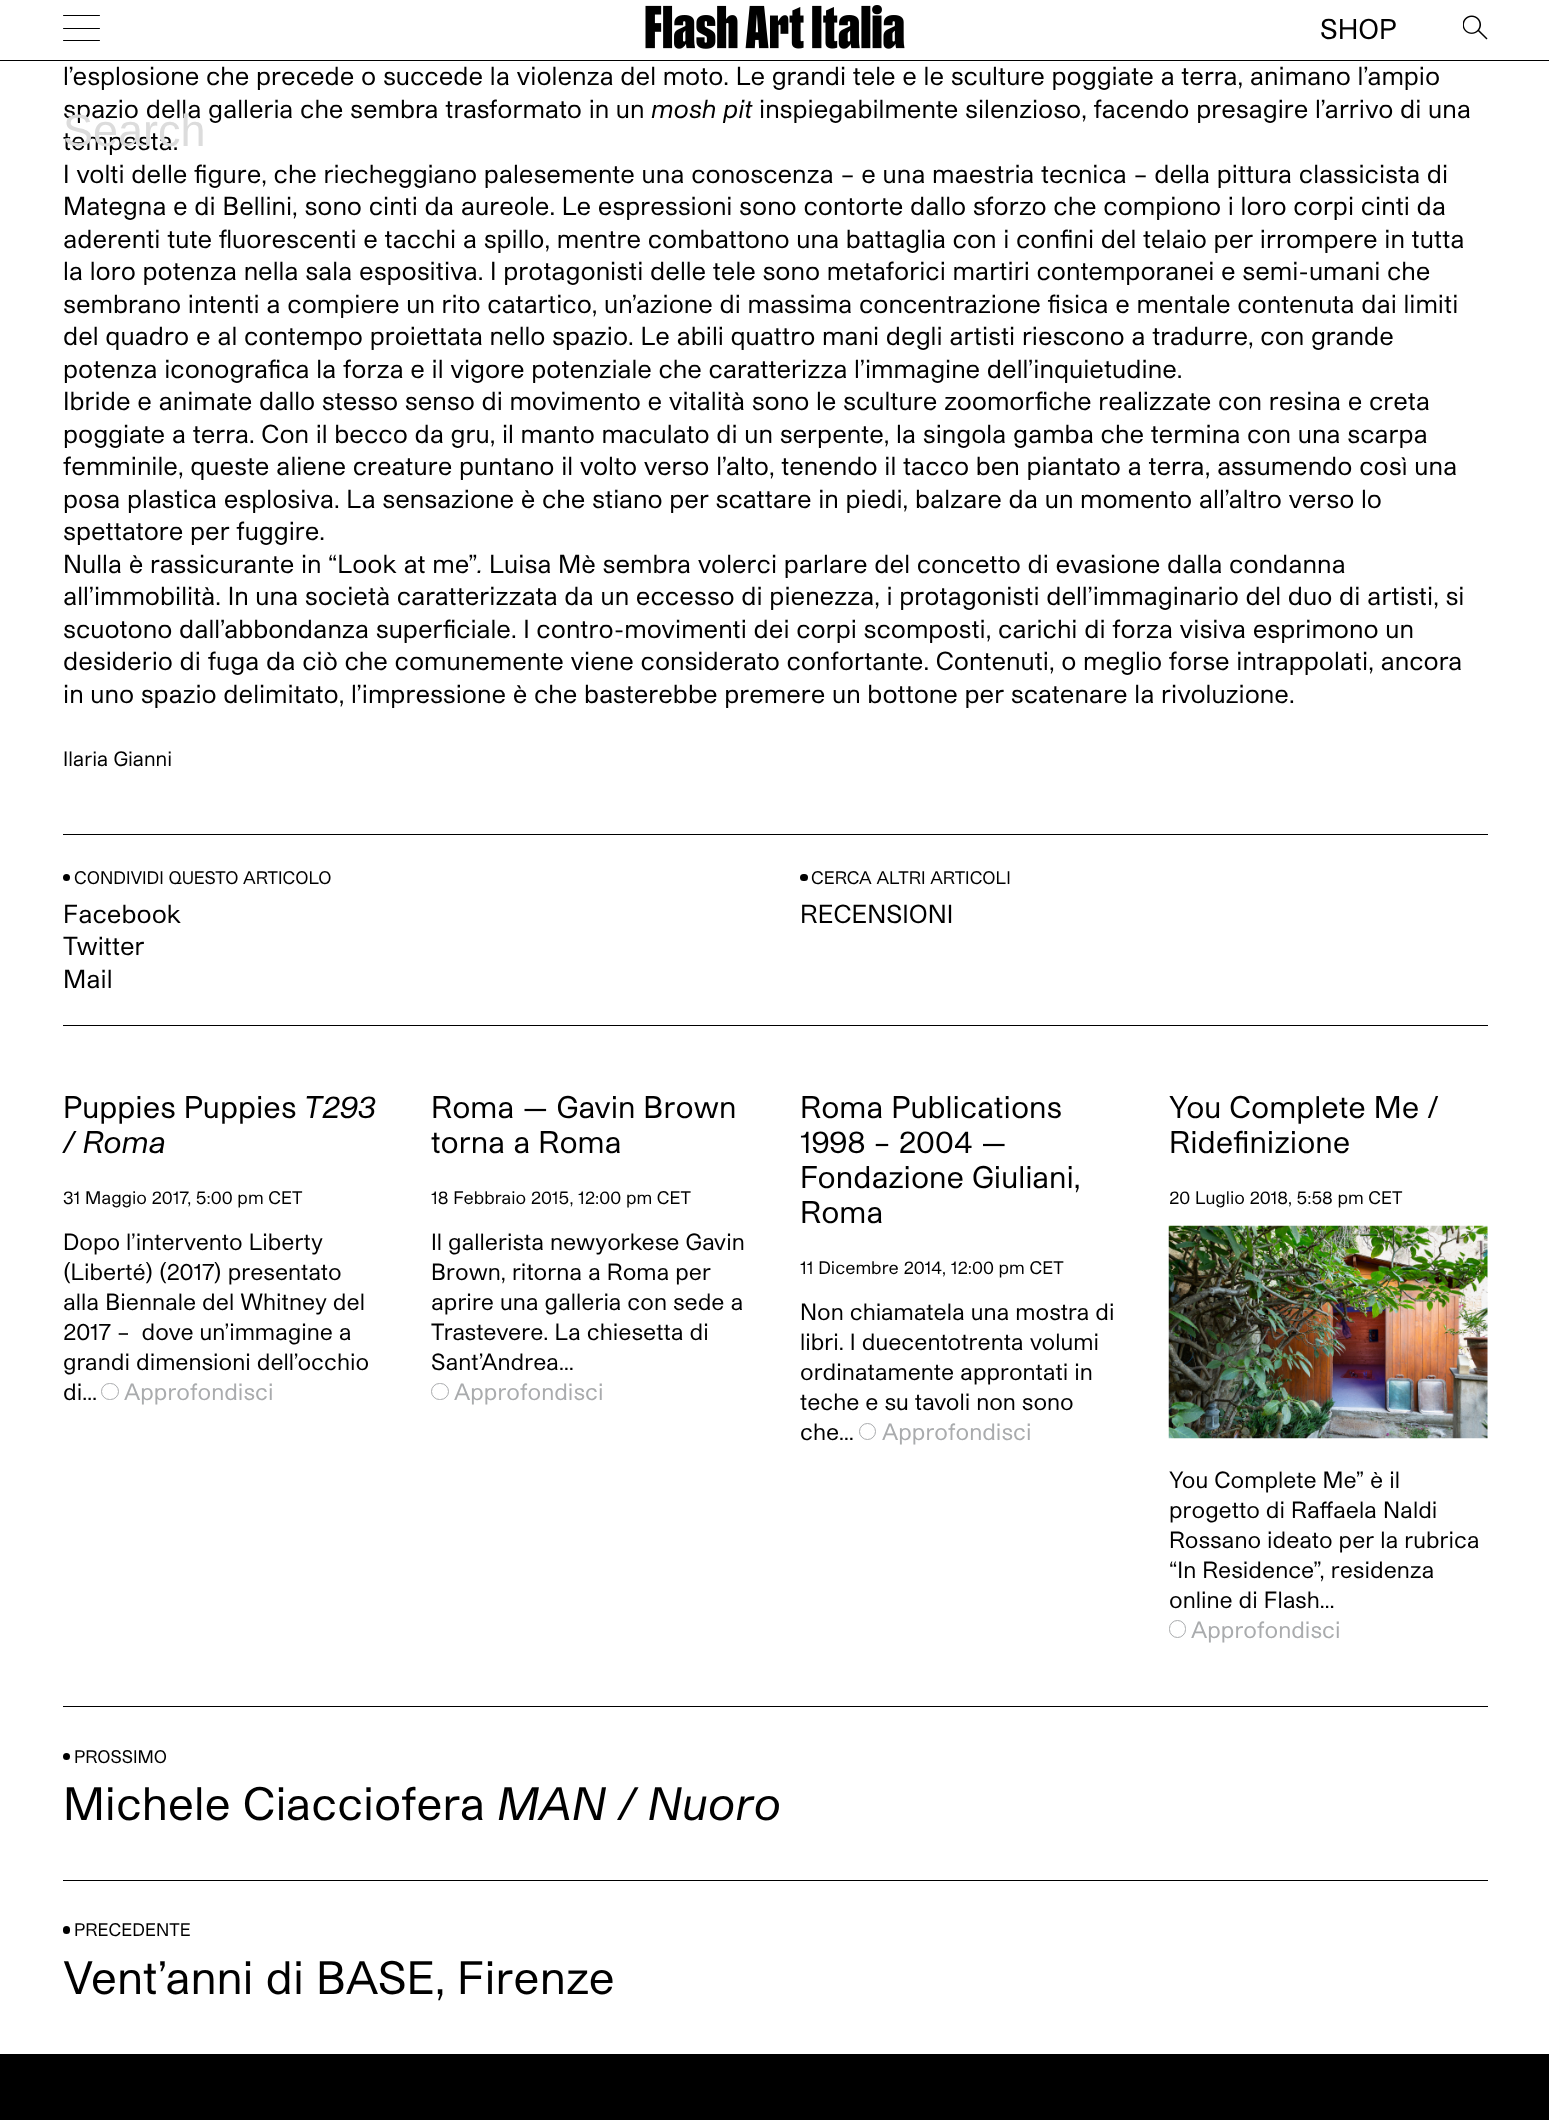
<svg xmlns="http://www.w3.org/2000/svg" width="1549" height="2120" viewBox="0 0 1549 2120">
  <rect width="100%" height="100%" fill="#ffffff"/>
  <rect x="0" y="60" width="1549" height="1" fill="#000000"/>
  <rect x="63" y="28" width="37" height="1" rx="0.5" fill="#000000"/>
  <rect x="63" y="15" width="37" height="1" rx="0.5" fill="#000000"/>
  <rect x="63" y="40" width="37" height="1" rx="0.5" fill="#000000"/>
  <image x="645" y="5" width="260" height="44" href="img1.png"/>
  <text x="1320" y="39" font-family="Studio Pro" font-size="27.5" fill="#000000">SHOP</text>
  <image x="1463" y="15" width="25" height="25" href="img2.png"/>
  <text x="63" y="85" font-family="Studio Pro" font-size="25" fill="#000000">l’esplosione che precede o succede la violenza del moto. Le grandi tele e le sculture poggiate a terra, animano l’ampio</text>
  <text x="63" y="118" font-family="Studio Pro" font-size="25" fill="#000000">spazio della galleria che sembra trasformato in un</text>
  <text x="651" y="118" font-family="'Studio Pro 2'" font-size="25" fill="#000000">mosh pit</text>
  <text x="759" y="118" font-family="Studio Pro" font-size="25" fill="#000000">inspiegabilmente silenzioso, facendo presagire l’arrivo di una</text>
  <text x="63" y="150" font-family="Studio Pro" font-size="25" fill="#000000">tempesta.</text>
  <text x="63" y="183" font-family="Studio Pro" font-size="25" fill="#000000">I volti delle figure, che riecheggiano palesemente una conoscenza – e una maestria tecnica – della pittura classicista di</text>
  <text x="63" y="215" font-family="Studio Pro" font-size="25" fill="#000000">Mategna e di Bellini, sono cinti da aureole. Le espressioni sono contorte dallo sforzo che compiono i loro corpi cinti da</text>
  <text x="63" y="248" font-family="Studio Pro" font-size="25" fill="#000000">aderenti tute fluorescenti e tacchi a spillo, mentre combattono una battaglia con i confini del telaio per irrompere in tutta</text>
  <text x="63" y="280" font-family="Studio Pro" font-size="25" fill="#000000">la loro potenza nella sala espositiva. I protagonisti delle tele sono metaforici martiri contemporanei e semi-umani che</text>
  <text x="63" y="313" font-family="Studio Pro" font-size="25" fill="#000000">sembrano intenti a compiere un rito catartico, un’azione di massima concentrazione fisica e mentale contenuta dai limiti</text>
  <text x="63" y="345" font-family="Studio Pro" font-size="25" fill="#000000">del quadro e al contempo proiettata nello spazio. Le abili quattro mani degli artisti riescono a tradurre, con grande</text>
  <text x="63" y="378" font-family="Studio Pro" font-size="25" fill="#000000">potenza iconografica la forza e il vigore potenziale che caratterizza l’immagine dell’inquietudine.</text>
  <text x="63" y="410" font-family="Studio Pro" font-size="25" fill="#000000">Ibride e animate dallo stesso senso di movimento e vitalità sono le sculture zoomorfiche realizzate con resina e creta</text>
  <text x="63" y="443" font-family="Studio Pro" font-size="25" fill="#000000">poggiate a terra. Con il becco da gru, il manto maculato di un serpente, la singola gamba che termina con una scarpa</text>
  <text x="63" y="475" font-family="Studio Pro" font-size="25" fill="#000000">femminile, queste aliene creature puntano il volto verso l’alto, tenendo il tacco ben piantato a terra, assumendo così una</text>
  <text x="63" y="508" font-family="Studio Pro" font-size="25" fill="#000000">posa plastica esplosiva. La sensazione è che stiano per scattare in piedi, balzare da un momento all’altro verso lo</text>
  <text x="63" y="540" font-family="Studio Pro" font-size="25" fill="#000000">spettatore per fuggire.</text>
  <text x="63" y="573" font-family="Studio Pro" font-size="25" fill="#000000">Nulla è rassicurante in “Look at me”</text>
  <text x="477" y="573" font-family="'Studio Pro 2'" font-size="25" fill="#000000">.</text>
  <text x="489" y="573" font-family="Studio Pro" font-size="25" fill="#000000">Luisa Mè sembra volerci parlare del concetto di evasione dalla condanna</text>
  <text x="63" y="605" font-family="Studio Pro" font-size="25" fill="#000000">all’immobilità. In una società caratterizzata da un eccesso di pienezza, i protagonisti dell’immaginario del duo di artisti, si</text>
  <text x="63" y="638" font-family="Studio Pro" font-size="25" fill="#000000">scuotono dall’abbondanza superficiale. I contro-movimenti dei corpi scomposti, carichi di forza visiva esprimono un</text>
  <text x="63" y="670" font-family="Studio Pro" font-size="25" fill="#000000">desiderio di fuga da ciò che comunemente viene considerato confortante. Contenuti, o meglio forse intrappolati, ancora</text>
  <text x="63" y="703" font-family="Studio Pro" font-size="25" fill="#000000">in uno spazio delimitato, l’impressione è che basterebbe premere un bottone per scatenare la rivoluzione.</text>
  <text x="63" y="766" font-family="Studio Pro" font-size="20" fill="#000000">Ilaria Gianni</text>
  <rect x="63" y="834" width="1425" height="1" fill="#000000"/>
  <rect x="63" y="1025" width="1425" height="1" fill="#000000"/>
  <circle cx="66.5" cy="877.5" r="3.5" fill="#000000"/>
  <text x="74" y="884" font-family="Studio Pro" font-size="17.5" fill="#000000">CONDIVIDI QUESTO ARTICOLO</text>
  <text x="63" y="923" font-family="Studio Pro" font-size="25" fill="#000000">Facebook</text>
  <text x="63" y="955" font-family="Studio Pro" font-size="25" fill="#000000">Twitter</text>
  <text x="63" y="988" font-family="Studio Pro" font-size="25" fill="#000000">Mail</text>
  <rect x="800" y="874" width="8" height="7" rx="3.5" fill="#000000"/>
  <text x="811" y="884" font-family="Studio Pro" font-size="17.5" fill="#000000">CERCA ALTRI ARTICOLI</text>
  <text x="800" y="923" font-family="Studio Pro" font-size="25" fill="#000000">RECENSIONI</text>
  <text x="63" y="1118" font-family="Studio Pro" font-size="30" fill="#000000">Puppies Puppies</text>
  <text x="304" y="1118" font-family="'Studio Pro 2'" font-size="30" fill="#000000">T293</text>
  <text x="63" y="1153" font-family="'Studio Pro 2'" font-size="30" fill="#000000">/ Roma</text>
  <text x="63" y="1204" font-family="Studio Pro" font-size="17.5" fill="#000000">31 Maggio 2017, 5:00 pm CET</text>
  <text x="63" y="1250" font-family="Studio Pro" font-size="22.5" fill="#000000">Dopo l’intervento Liberty</text>
  <text x="63" y="1280" font-family="Studio Pro" font-size="22.5" fill="#000000">(Liberté) (2017) presentato</text>
  <text x="63" y="1310" font-family="Studio Pro" font-size="22.5" fill="#000000">alla Biennale del Whitney del</text>
  <text x="63" y="1340" font-family="Studio Pro" font-size="22.5" fill="#000000" xml:space="preserve">2017 –  dove un’immagine a</text>
  <text x="63" y="1370" font-family="Studio Pro" font-size="22.5" fill="#000000">grandi dimensioni dell’occhio</text>
  <text x="63" y="1400" font-family="Studio Pro" font-size="22.5" fill="#000000">di…</text>
  <rect x="101.5" y="1383.5" width="17" height="16" rx="8" fill="none" stroke="#a9abad"/>
  <text x="124" y="1400" font-family="Studio Pro" font-size="22.5" fill="#a9abad">Approfondisci</text>
  <text x="431" y="1118" font-family="Studio Pro" font-size="30" fill="#000000">Roma — Gavin Brown</text>
  <text x="431" y="1153" font-family="Studio Pro" font-size="30" fill="#000000">torna a Roma</text>
  <text x="431" y="1204" font-family="Studio Pro" font-size="17.5" fill="#000000">18 Febbraio 2015, 12:00 pm CET</text>
  <text x="431" y="1250" font-family="Studio Pro" font-size="22.5" fill="#000000">Il gallerista newyorkese Gavin</text>
  <text x="431" y="1280" font-family="Studio Pro" font-size="22.5" fill="#000000">Brown, ritorna a Roma per</text>
  <text x="431" y="1310" font-family="Studio Pro" font-size="22.5" fill="#000000">aprire una galleria con sede a</text>
  <text x="431" y="1340" font-family="Studio Pro" font-size="22.5" fill="#000000">Trastevere. La chiesetta di</text>
  <text x="431" y="1370" font-family="Studio Pro" font-size="22.5" fill="#000000">Sant’Andrea…</text>
  <rect x="431.5" y="1383.5" width="17" height="16" rx="8" fill="none" stroke="#a9abad"/>
  <text x="454" y="1400" font-family="Studio Pro" font-size="22.5" fill="#a9abad">Approfondisci</text>
  <text x="800" y="1118" font-family="Studio Pro" font-size="30" fill="#000000">Roma Publications</text>
  <text x="800" y="1153" font-family="Studio Pro" font-size="30" fill="#000000">1998 – 2004 —</text>
  <text x="800" y="1188" font-family="Studio Pro" font-size="30" fill="#000000">Fondazione Giuliani,</text>
  <text x="800" y="1223" font-family="Studio Pro" font-size="30" fill="#000000">Roma</text>
  <text x="800" y="1274" font-family="Studio Pro" font-size="17.5" fill="#000000">11 Dicembre 2014, 12:00 pm CET</text>
  <text x="800" y="1320" font-family="Studio Pro" font-size="22.5" fill="#000000">Non chiamatela una mostra di</text>
  <text x="800" y="1350" font-family="Studio Pro" font-size="22.5" fill="#000000">libri. I duecentotrenta volumi</text>
  <text x="800" y="1380" font-family="Studio Pro" font-size="22.5" fill="#000000">ordinatamente approntati in</text>
  <text x="800" y="1410" font-family="Studio Pro" font-size="22.5" fill="#000000">teche e su tavoli non sono</text>
  <text x="800" y="1440" font-family="Studio Pro" font-size="22.5" fill="#000000">che…</text>
  <circle cx="867.5" cy="1431.5" r="8" fill="none" stroke="#a9abad"/>
  <text x="882" y="1440" font-family="Studio Pro" font-size="22.5" fill="#a9abad">Approfondisci</text>
  <text x="1169" y="1118" font-family="Studio Pro" font-size="30" fill="#000000">You Complete Me /</text>
  <text x="1169" y="1153" font-family="Studio Pro" font-size="30" fill="#000000">Ridefinizione</text>
  <text x="1169" y="1204" font-family="Studio Pro" font-size="17.5" fill="#000000">20 Luglio 2018, 5:58 pm CET</text>
  <image x="1168" y="1225" width="320" height="214" href="img3.png"/>
  <text x="1169" y="1488" font-family="Studio Pro" font-size="22.5" fill="#000000">You Complete Me” è il</text>
  <text x="1169" y="1518" font-family="Studio Pro" font-size="22.5" fill="#000000">progetto di Raffaela Naldi</text>
  <text x="1169" y="1548" font-family="Studio Pro" font-size="22.5" fill="#000000">Rossano ideato per la rubrica</text>
  <text x="1169" y="1578" font-family="Studio Pro" font-size="22.5" fill="#000000">“In Residence”, residenza</text>
  <text x="1169" y="1608" font-family="Studio Pro" font-size="22.5" fill="#000000">online di Flash…</text>
  <rect x="1169.5" y="1620.5" width="16" height="17" rx="8" fill="none" stroke="#a9abad"/>
  <text x="1191" y="1638" font-family="Studio Pro" font-size="22.5" fill="#a9abad">Approfondisci</text>
  <rect x="63" y="1706" width="1425" height="1" fill="#000000"/>
  <circle cx="66.5" cy="1756.5" r="3.5" fill="#000000"/>
  <text x="74" y="1763" font-family="Studio Pro" font-size="17.5" fill="#000000">PROSSIMO</text>
  <text x="63" y="1820" font-family="Studio Pro" font-size="45" fill="#000000">Michele Ciacciofera</text>
  <text x="497" y="1820" font-family="'Studio Pro 2'" font-size="45" fill="#000000">MAN / Nuoro</text>
  <rect x="63" y="1880" width="1425" height="1" fill="#000000"/>
  <rect x="63" y="1926" width="7" height="8" rx="3.5" fill="#000000"/>
  <text x="74" y="1936" font-family="Studio Pro" font-size="17.5" fill="#000000">PRECEDENTE</text>
  <text x="63" y="1994" font-family="Studio Pro" font-size="45" fill="#000000">Vent’anni di BASE, Firenze</text>
  <text x="63" y="146" font-family="Liberation Sans" font-size="45" fill="#dcdcdc">Search</text>
  <rect x="0" y="2054" width="1549" height="66" fill="#000000"/>
</svg>
